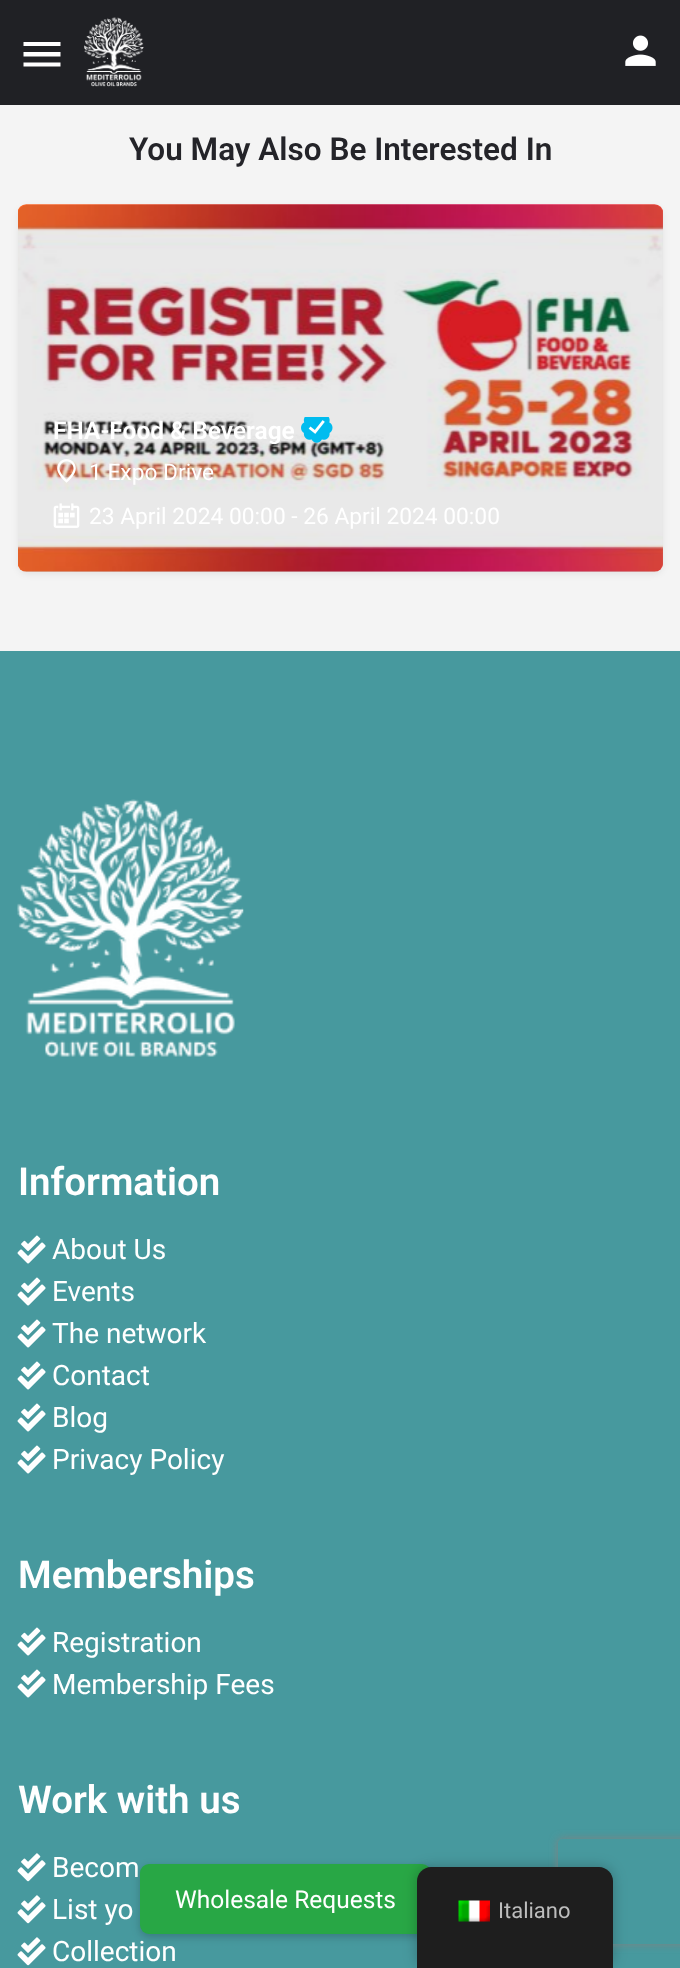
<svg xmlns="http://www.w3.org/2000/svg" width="680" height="1968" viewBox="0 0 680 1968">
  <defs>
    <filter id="blur1" x="-50%" y="-200%" width="200%" height="500%"><feGaussianBlur stdDeviation="3.5"/></filter>
    <filter id="blur2" x="-50%" y="-200%" width="200%" height="500%"><feGaussianBlur stdDeviation="4.5"/></filter>
    <filter id="blur3" x="-50%" y="-200%" width="200%" height="500%"><feGaussianBlur stdDeviation="7"/></filter>
    <clipPath id="clip1"><path d="M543 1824H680V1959H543ZM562 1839H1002C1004 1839 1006 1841 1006 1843V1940C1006 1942 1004 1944 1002 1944H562C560 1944 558 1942 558 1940V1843C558 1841 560 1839 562 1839Z" clip-rule="evenodd"/></clipPath>
  </defs>
  <rect width="100%" height="100%" fill="#f4f4f4"/>
  <rect x="0" y="0" width="680" height="105" fill="#202125"/>
  <path d="M23.5 42H60.5V46H23.5ZM23.5 56.5V52H60.5V56.5ZM23.5 66.5V62.5H60.5V66.5Z" fill="#ffffff"/>
  <image x="84" y="17" width="60" height="70" href="img1.png"/>
  <image x="625" y="35" width="31" height="31" href="img2.png"/>
  <text x="129" y="160" font-family="Roboto" font-size="31.5" font-weight="600" fill="#242429">You May Also Be Interested In</text>
  <rect x="18" y="207" width="645" height="367" rx="9" fill="#000000" fill-opacity="0.07" filter="url(#blur1)"/>
  <image x="18" y="204" width="645" height="368" href="img3.png"/>
  <rect x="18" y="205" width="645" height="367" rx="9" fill="#242429" fill-opacity="0.1"/>
  <text x="53" y="439" font-family="Roboto" font-size="24.5" font-weight="600" fill="#ffffff">FHA-Food &amp; Beverage</text>
  <image x="301" y="417" width="32" height="26" href="img4.png"/>
  <image x="57" y="459" width="19" height="24" href="img5.png"/>
  <text x="89" y="480" font-family="Roboto" font-size="22.75" fill="#ffffff">1 Expo Drive</text>
  <image x="53" y="503" width="27" height="25" href="img6.png"/>
  <text x="89" y="524" font-family="Roboto" font-size="22.75" fill="#ffffff">23 April 2024 00:00 - 26 April 2024 00:00</text>
  <rect x="0" y="651" width="680" height="1317" fill="#47999e"/>
  <image x="17" y="799" width="227" height="258" href="img7.png"/>
  <text x="18" y="1195" font-family="Roboto" font-size="38.5" font-weight="600" fill="#ffffff">Information</text>
  <image x="17" y="1235" width="29" height="29" href="img8.png"/>
  <text x="52" y="1259" font-family="Roboto" font-size="28" fill="#ffffff">About Us</text>
  <image x="17" y="1277" width="29" height="29" href="img8.png"/>
  <text x="52" y="1301" font-family="Roboto" font-size="28" fill="#ffffff">Events</text>
  <image x="17" y="1319" width="29" height="29" href="img8.png"/>
  <text x="52" y="1343" font-family="Roboto" font-size="28" fill="#ffffff">The network</text>
  <image x="17" y="1361" width="29" height="29" href="img8.png"/>
  <text x="52" y="1385" font-family="Roboto" font-size="28" fill="#ffffff">Contact</text>
  <image x="17" y="1403" width="29" height="29" href="img8.png"/>
  <text x="52" y="1427" font-family="Roboto" font-size="28" fill="#ffffff">Blog</text>
  <image x="17" y="1445" width="29" height="29" href="img8.png"/>
  <text x="52" y="1469" font-family="Roboto" font-size="28" fill="#ffffff">Privacy Policy</text>
  <text x="18" y="1588" font-family="Roboto" font-size="38.5" font-weight="600" fill="#ffffff">Memberships</text>
  <image x="17" y="1627" width="29" height="29" href="img8.png"/>
  <text x="52" y="1652" font-family="Roboto" font-size="28" fill="#ffffff">Registration</text>
  <image x="17" y="1669" width="29" height="29" href="img8.png"/>
  <text x="52" y="1694" font-family="Roboto" font-size="28" fill="#ffffff">Membership Fees</text>
  <text x="18" y="1813" font-family="Roboto" font-size="38.5" font-weight="600" fill="#ffffff">Work with us</text>
  <image x="17" y="1853" width="29" height="29" href="img9.png"/>
  <text x="52" y="1877" font-family="Roboto" font-size="28" fill="#ffffff">Becom</text>
  <image x="17" y="1895" width="29" height="29" href="img9.png"/>
  <text x="52" y="1919" font-family="Roboto" font-size="28" fill="#ffffff">List yo</text>
  <image x="17" y="1937" width="29" height="29" href="img9.png"/>
  <text x="52" y="1961" font-family="Roboto" font-size="28" fill="#ffffff">Collection</text>
  <rect x="140" y="1867" width="291" height="70" rx="9" fill="#000000" fill-opacity="0.2" filter="url(#blur2)"/>
  <rect x="140" y="1864" width="291" height="70" rx="9" fill="#28a745"/>
  <text x="175" y="1908" font-family="Roboto" font-size="24.5" fill="#ffffff">Wholesale Requests</text>
  <rect x="417" y="1867" width="196" height="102" rx="14" fill="#000000" fill-opacity="0.25" filter="url(#blur3)"/>
  <g clip-path="url(#clip1)">
    <rect x="558" y="1839" width="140" height="105" rx="4" fill="#808080" filter="url(#blur2)"/>
  </g>
  <path d="M431 1867H599C606.5 1867 613 1873.5 613 1881V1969H417V1881C417 1873.5 423.5 1867 431 1867Z" fill="#1e1e1e"/>
  <image x="458" y="1900" width="32" height="22" href="img10.png"/>
  <text x="498" y="1918" font-family="Roboto" font-size="22" fill="#bdbdbd">Italiano</text>
</svg>
